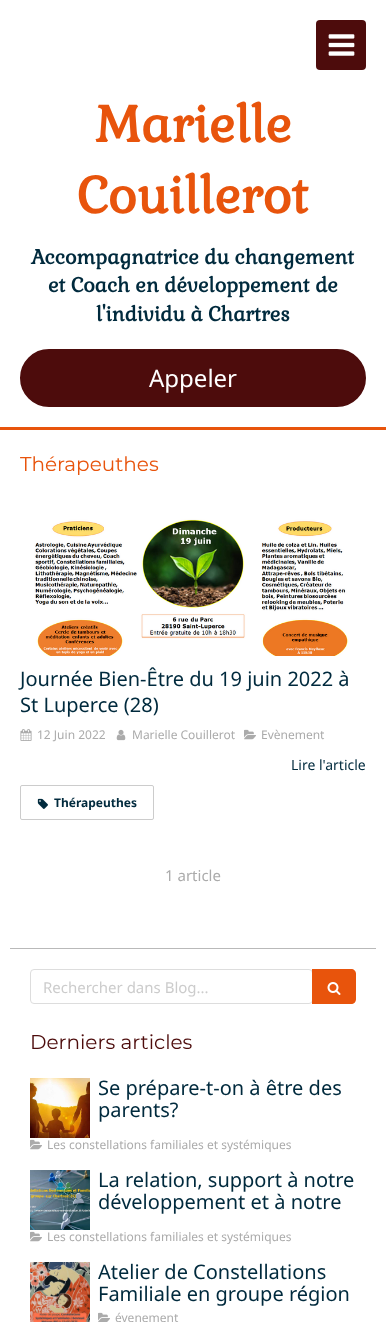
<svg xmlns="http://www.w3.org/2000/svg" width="386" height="1322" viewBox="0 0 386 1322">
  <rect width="100%" height="100%" fill="#ffffff"/>
  <rect x="0" y="427" width="386" height="3" fill="#e8540c"/>
  <rect x="316" y="20" width="50" height="50" rx="4" fill="#4d0c0c"/>
  <image x="328" y="34" width="27" height="22" href="img1.png"/>
  <text x="95" y="142" font-family="Gabriela" font-size="50" font-weight="bold" fill="#e8540c">Marielle</text>
  <text x="77" y="213" font-family="Gabriela" font-size="50" font-weight="bold" fill="#e8540c">Couillerot</text>
  <text x="31" y="264" font-family="Gabriela" font-size="20" font-weight="bold" fill="#002a3d">Accompagnatrice du changement</text>
  <text x="48" y="292" font-family="Gabriela" font-size="20" font-weight="bold" fill="#002a3d">et Coach en développement de</text>
  <text x="96" y="321" font-family="Gabriela" font-size="20" font-weight="bold" fill="#002a3d">l'individu à Chartres</text>
  <rect x="21" y="350" width="344" height="56" rx="28" fill="#4d0c0c" stroke="#4d0c0c" stroke-width="2"/>
  <text x="149" y="387" font-family="Noto Sans" font-size="24" fill="#ffffff">Appeler</text>
  <text x="20" y="471" font-family="Montserrat" font-size="20" fill="#e8540c">Thérapeuthes</text>
  <rect x="10" y="948" width="366" height="1" fill="#b9b9b9"/>
  <image x="20" y="518" width="346" height="138" href="img2.png"/>
  <text x="20" y="686" font-family="Noto Sans" font-size="20" fill="#002a3d">Journée Bien-Être du 19 juin 2022 à</text>
  <text x="20" y="712" font-family="Noto Sans" font-size="20" fill="#002a3d">St Luperce (28)</text>
  <image x="20" y="729" width="12" height="12" href="img3.png"/>
  <text x="37" y="739" font-family="Noto Sans" font-size="12" fill="#ababab">12 Juin 2022</text>
  <image x="116" y="729" width="10" height="12" href="img4.png"/>
  <text x="132" y="739" font-family="Noto Sans" font-size="12" fill="#ababab">Marielle Couillerot</text>
  <image x="244" y="729" width="12" height="11" href="img5.png"/>
  <text x="261" y="739" font-family="Noto Sans" font-size="12" fill="#ababab">Evènement</text>
  <text x="291" y="770" font-family="Noto Sans" font-size="14" fill="#002a3d">Lire l'article</text>
  <rect x="20.5" y="785.5" width="133" height="34" rx="1.5" fill="none" stroke="#cccccc"/>
  <image x="37" y="798" width="11" height="11" href="img6.png"/>
  <text x="54" y="807" font-family="Noto Sans" font-size="12" font-weight="bold" fill="#002a3d">Thérapeuthes</text>
  <text x="165" y="881" font-family="Noto Sans" font-size="15" fill="#ababab">1 article</text>
  <rect x="30.5" y="969.5" width="282" height="34" rx="3.5" fill="none" stroke="#dddddd"/>
  <text x="43" y="993" font-family="Noto Sans" font-size="15" fill="#cccccc">Rechercher dans Blog...</text>
  <path d="M312 969H351C354 969 356 971 356 974V999C356 1002 354 1004 351 1004H312Z" fill="#e8540c"/>
  <image x="327" y="982" width="14" height="13" href="img7.png"/>
  <text x="30" y="1049" font-family="Montserrat" font-size="20" fill="#4d0c0c">Derniers articles</text>
  <image x="30" y="1078" width="60" height="60" href="img8.png"/>
  <text x="98" y="1095" font-family="Noto Sans" font-size="20" fill="#002a3d">Se prépare-t-on à être des</text>
  <text x="98" y="1117" font-family="Noto Sans" font-size="20" fill="#002a3d">parents?</text>
  <image x="30" y="1139" width="12" height="11" href="img5.png"/>
  <text x="47" y="1149" font-family="Noto Sans" font-size="12" fill="#ababab">Les constellations familiales et systémiques</text>
  <image x="30" y="1170" width="60" height="60" href="img9.png"/>
  <text x="98" y="1187" font-family="Noto Sans" font-size="20" fill="#002a3d">La relation, support à notre</text>
  <text x="98" y="1209" font-family="Noto Sans" font-size="20" fill="#002a3d">développement et à notre</text>
  <image x="30" y="1231" width="12" height="11" href="img5.png"/>
  <text x="47" y="1241" font-family="Noto Sans" font-size="12" fill="#ababab">Les constellations familiales et systémiques</text>
  <image x="30" y="1262" width="60" height="60" href="img10.png"/>
  <text x="98" y="1279" font-family="Noto Sans" font-size="20" fill="#002a3d">Atelier de Constellations</text>
  <text x="98" y="1301" font-family="Noto Sans" font-size="20" fill="#002a3d">Familiale en groupe région</text>
  <image x="98" y="1312" width="12" height="10" href="img11.png"/>
  <text x="115" y="1322" font-family="Noto Sans" font-size="12" fill="#ababab">évenement</text>
</svg>
